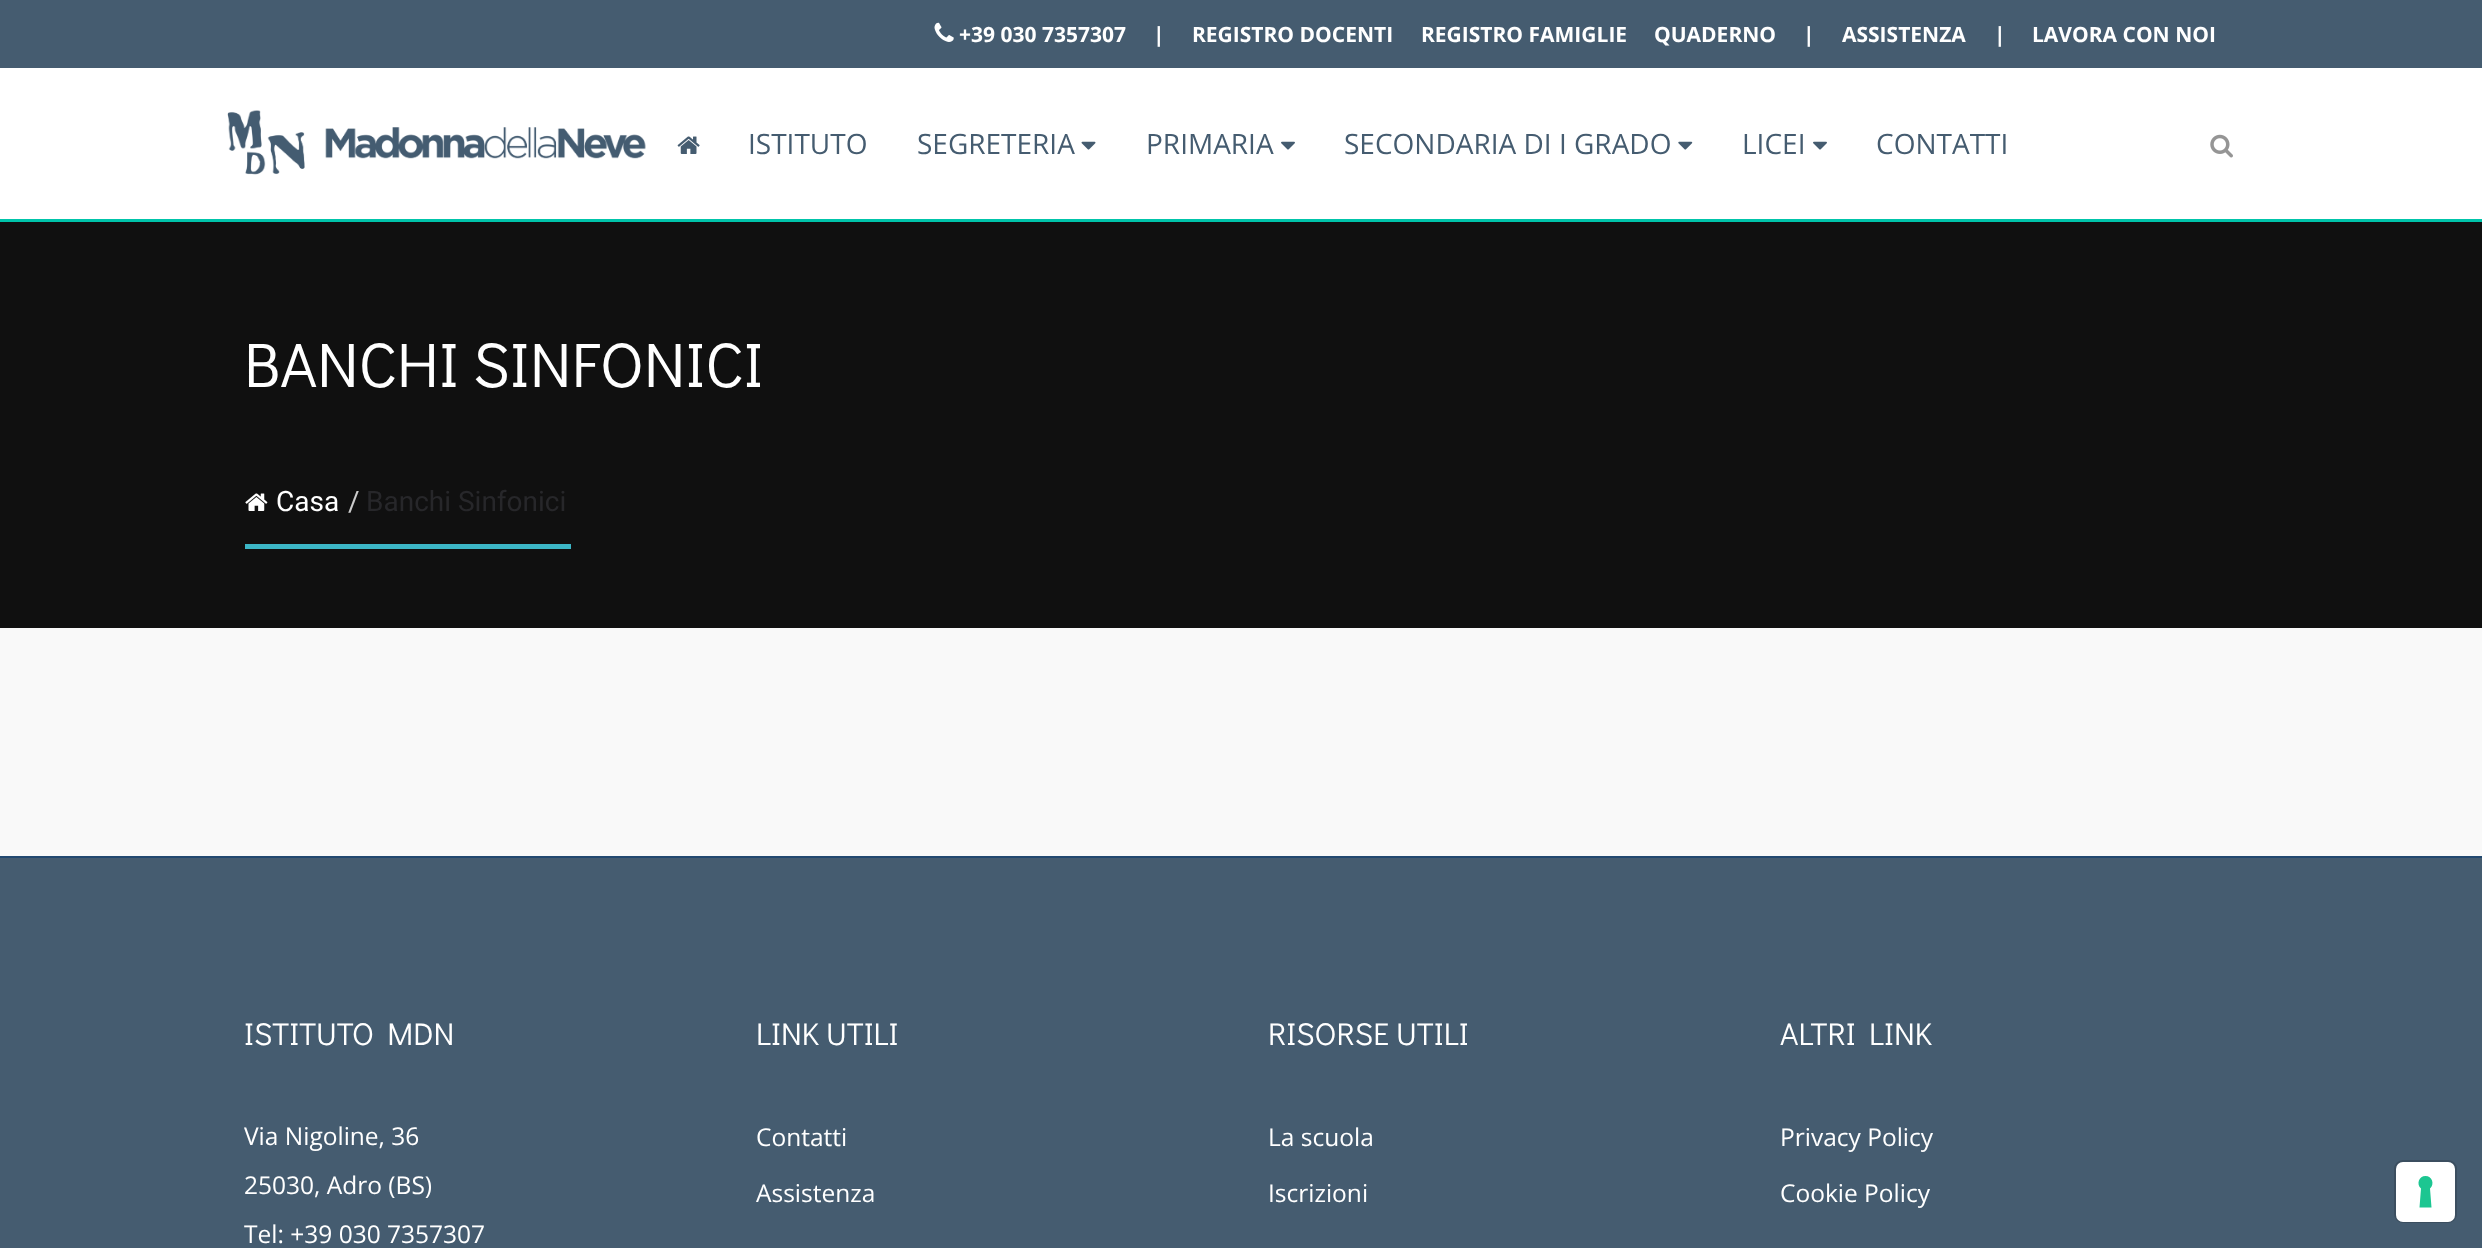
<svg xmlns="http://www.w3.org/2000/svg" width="2482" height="1248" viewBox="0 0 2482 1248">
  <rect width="100%" height="100%" fill="#f9f9f9"/>
  <rect x="0" y="0" width="2482" height="68" fill="#455c70"/>
  <image x="934" y="22" width="20" height="20" href="img1.png"/>
  <text x="959" y="42" font-family="Open Sans" font-size="21" font-weight="bold" fill="#ffffff">+39 030 7357307</text>
  <text x="1153" y="42" font-family="Open Sans" font-size="21" font-weight="bold" fill="#ffffff">|</text>
  <text x="1192" y="42" font-family="Open Sans" font-size="21" font-weight="bold" fill="#ffffff">REGISTRO DOCENTI</text>
  <text x="1421" y="42" font-family="Open Sans" font-size="21" font-weight="bold" fill="#ffffff">REGISTRO FAMIGLIE</text>
  <text x="1654" y="42" font-family="Open Sans" font-size="21" font-weight="bold" fill="#ffffff">QUADERNO</text>
  <text x="1803" y="42" font-family="Open Sans" font-size="21" font-weight="bold" fill="#ffffff">|</text>
  <text x="1842" y="42" font-family="Open Sans" font-size="21" font-weight="bold" fill="#ffffff">ASSISTENZA</text>
  <text x="1994" y="42" font-family="Open Sans" font-size="21" font-weight="bold" fill="#ffffff">|</text>
  <text x="2032" y="42" font-family="Open Sans" font-size="21" font-weight="bold" fill="#ffffff">LAVORA CON NOI</text>
  <rect x="0" y="68" width="2482" height="151" fill="#ffffff"/>
  <rect x="0" y="219" width="2482" height="3" fill="#00c4aa"/>
  <image x="227" y="110" width="419" height="65" href="img2.png"/>
  <image x="677" y="136" width="23" height="18" href="img3.png"/>
  <text x="748" y="154" font-family="Open Sans" font-size="28" fill="#455c70">ISTITUTO</text>
  <text x="917" y="154" font-family="Open Sans" font-size="28" fill="#455c70">SEGRETERIA</text>
  <image x="1081" y="141" width="15" height="9" href="img4.png"/>
  <text x="1146" y="154" font-family="Open Sans" font-size="28" fill="#455c70">PRIMARIA</text>
  <image x="1281" y="141" width="14" height="9" href="img5.png"/>
  <text x="1344" y="154" font-family="Open Sans" font-size="28" fill="#455c70">SECONDARIA DI I GRADO</text>
  <image x="1678" y="141" width="15" height="9" href="img6.png"/>
  <text x="1742" y="154" font-family="Open Sans" font-size="28" fill="#455c70">LICEI</text>
  <image x="1813" y="141" width="14" height="9" href="img5.png"/>
  <text x="1876" y="154" font-family="Open Sans" font-size="28" fill="#455c70">CONTATTI</text>
  <image x="2210" y="134" width="23" height="24" href="img7.png"/>
  <rect x="0" y="222" width="2482" height="406" fill="#101010"/>
  <text x="244" y="387" font-family="Didact Gothic" font-size="63" fill="#ffffff">BANCHI SINFONICI</text>
  <rect x="245" y="544" width="326" height="5" fill="#3cb6c6"/>
  <image x="245" y="493" width="23" height="18" href="img8.png"/>
  <text x="276" y="511" font-family="Roboto" font-size="28" fill="#ffffff">Casa</text>
  <text x="348" y="511" font-family="Roboto" font-size="28" fill="#cccccc">/</text>
  <text x="366" y="511" font-family="Roboto" font-size="28" fill="#27272a">Banchi Sinfonici</text>
  <rect x="0" y="858" width="2482" height="390" fill="#455c70"/>
  <rect x="0" y="856" width="2482" height="2" fill="#224970"/>
  <text x="244" y="1045" font-family="Didact Gothic" font-size="31.5" fill="#ffffff">ISTITUTO MDN</text>
  <text x="244" y="1145" font-family="Open Sans" font-size="24.5" fill="#ffffff">Via Nigoline, 36</text>
  <text x="244" y="1194" font-family="Open Sans" font-size="24.5" fill="#ffffff">25030, Adro (BS)</text>
  <text x="244" y="1243" font-family="Open Sans" font-size="24.5" fill="#ffffff">Tel: +39 030 7357307</text>
  <text x="756" y="1045" font-family="Didact Gothic" font-size="31.5" fill="#ffffff">LINK UTILI</text>
  <text x="756" y="1146" font-family="Open Sans" font-size="24.5" fill="#ffffff">Contatti</text>
  <text x="756" y="1202" font-family="Open Sans" font-size="24.5" fill="#ffffff">Assistenza</text>
  <text x="1268" y="1045" font-family="Didact Gothic" font-size="31.5" fill="#ffffff">RISORSE UTILI</text>
  <text x="1268" y="1146" font-family="Open Sans" font-size="24.5" fill="#ffffff">La scuola</text>
  <text x="1268" y="1202" font-family="Open Sans" font-size="24.5" fill="#ffffff">Iscrizioni</text>
  <text x="1780" y="1045" font-family="Didact Gothic" font-size="31.5" fill="#ffffff">ALTRI LINK</text>
  <text x="1780" y="1146" font-family="Open Sans" font-size="24.5" fill="#ffffff">Privacy Policy</text>
  <text x="1780" y="1202" font-family="Open Sans" font-size="24.5" fill="#ffffff">Cookie Policy</text>
  <rect x="2395" y="1161" width="61" height="61" rx="8" fill="none" stroke="#3b4e5f" stroke-width="2"/>
  <rect x="2396" y="1162" width="59" height="60" rx="7" fill="#ffffff"/>
  <path d="M2425.5 1176C2432 1176 2435 1184 2430 1188.5L2431.5 1207.5H2419.5L2421 1188.5C2416 1184 2419 1176 2425.5 1176Z" fill="#1cc691" fill-rule="evenodd"/>
</svg>
